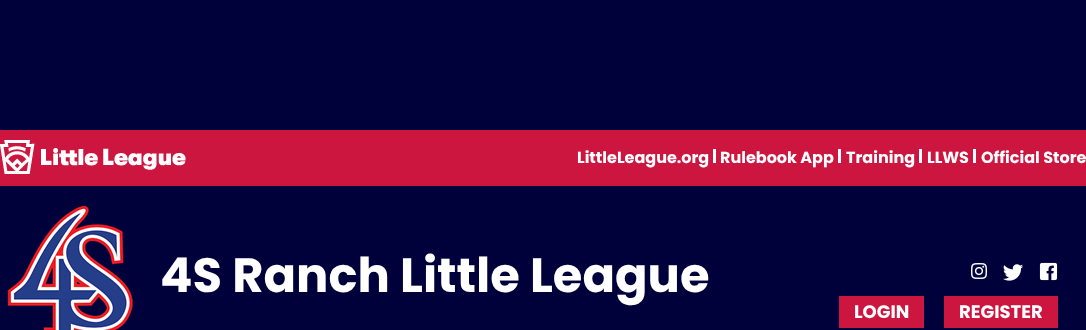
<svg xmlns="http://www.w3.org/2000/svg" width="1086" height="330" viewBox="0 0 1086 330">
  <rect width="100%" height="100%" fill="#00013a"/>
  <rect x="0" y="130" width="1086" height="56" fill="#cd163f"/>
  <image x="0" y="140" width="186" height="34" href="img1.png"/>
  <text x="577" y="163" font-family="Poppins" font-size="16" font-weight="bold" fill="#ffffff">LittleLeague.org</text>
  <rect x="713" y="149" width="3" height="14" fill="#ffffff"/>
  <text x="720" y="163" font-family="Poppins" font-size="16" font-weight="bold" fill="#ffffff">Rulebook App</text>
  <rect x="838" y="149" width="3" height="14" fill="#ffffff"/>
  <text x="846" y="163" font-family="Poppins" font-size="16" font-weight="bold" fill="#ffffff">Training</text>
  <rect x="919" y="149" width="3" height="14" fill="#ffffff"/>
  <text x="927" y="163" font-family="Poppins" font-size="16" font-weight="bold" fill="#ffffff">LLWS</text>
  <rect x="973" y="149" width="3" height="14" fill="#ffffff"/>
  <text x="981" y="163" font-family="Poppins" font-size="16" font-weight="bold" fill="#ffffff">Official Store</text>
  <image x="7" y="206" width="126" height="124" href="img2.png"/>
  <text x="160" y="292" font-family="Poppins" font-size="48" font-weight="bold" fill="#ffffff">4S Ranch Little League</text>
  <image x="971" y="263" width="16" height="16" href="img3.png"/>
  <image x="1003" y="264" width="20" height="17" href="img4.png"/>
  <image x="1039" y="262" width="19" height="19" href="img5.png"/>
  <rect x="839" y="296" width="85" height="32" fill="#cd163f"/>
  <text x="854" y="318" font-family="Poppins" font-size="18" font-weight="bold" fill="#ffffff">LOGIN</text>
  <rect x="944" y="296" width="114" height="32" fill="#cd163f"/>
  <text x="959" y="318" font-family="Poppins" font-size="18" font-weight="bold" fill="#ffffff">REGISTER</text>
</svg>
